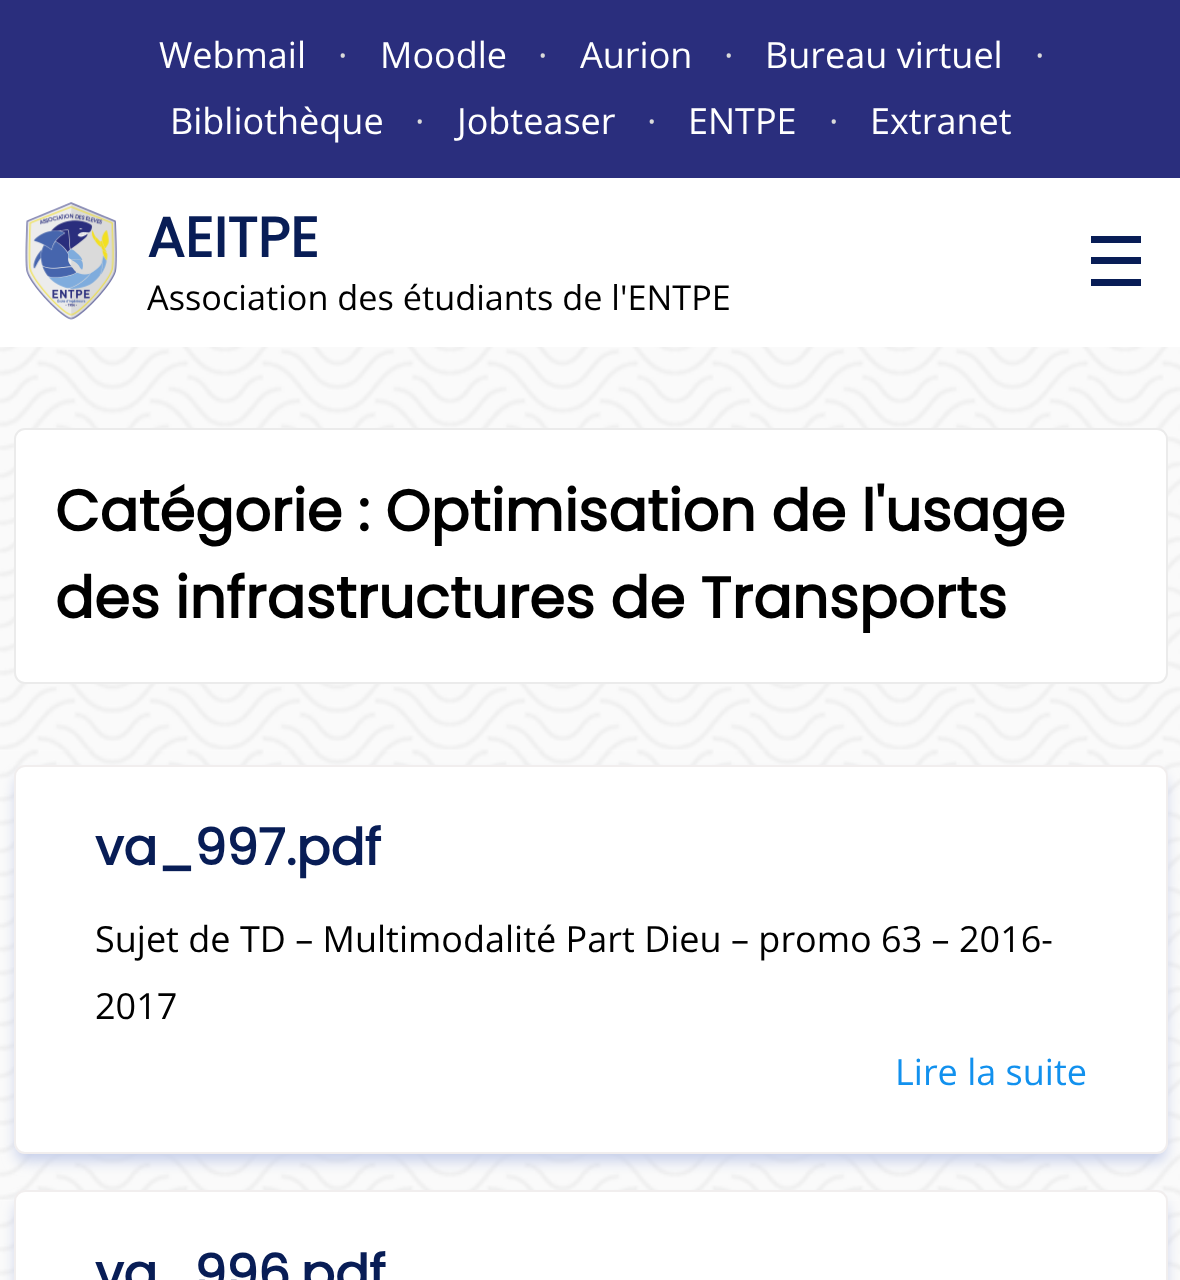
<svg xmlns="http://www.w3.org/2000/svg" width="1180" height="1280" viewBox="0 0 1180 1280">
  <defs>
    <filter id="blur1" x="-50%" y="-200%" width="200%" height="500%"><feGaussianBlur stdDeviation="7"/></filter>
  </defs>
  <rect width="100%" height="100%" fill="#ffffff"/>
  <image x="0" y="347" width="1180" height="933" href="img1.png"/>
  <rect x="0" y="0" width="1180" height="178" fill="#2a2e7d"/>
  <text x="159" y="68" font-family="Open Sans" font-size="36" fill="#ffffff">Webmail</text>
  <text x="338" y="68" font-family="Open Sans" font-size="36" fill="#dadada">·</text>
  <text x="380" y="68" font-family="Open Sans" font-size="36" fill="#ffffff">Moodle</text>
  <text x="538" y="68" font-family="Open Sans" font-size="36" fill="#dadada">·</text>
  <text x="580" y="68" font-family="Open Sans" font-size="36" fill="#ffffff">Aurion</text>
  <text x="724" y="68" font-family="Open Sans" font-size="36" fill="#dadada">·</text>
  <text x="765" y="68" font-family="Open Sans" font-size="36" fill="#ffffff">Bureau virtuel</text>
  <text x="1035" y="68" font-family="Open Sans" font-size="36" fill="#dadada">·</text>
  <text x="170" y="134" font-family="Open Sans" font-size="36" fill="#ffffff">Bibliothèque</text>
  <text x="415" y="134" font-family="Open Sans" font-size="36" fill="#dadada">·</text>
  <text x="457" y="134" font-family="Open Sans" font-size="36" fill="#ffffff">Jobteaser</text>
  <text x="647" y="134" font-family="Open Sans" font-size="36" fill="#dadada">·</text>
  <text x="688" y="134" font-family="Open Sans" font-size="36" fill="#ffffff">ENTPE</text>
  <text x="829" y="134" font-family="Open Sans" font-size="36" fill="#dadada">·</text>
  <text x="870" y="134" font-family="Open Sans" font-size="36" fill="#ffffff">Extranet</text>
  <image x="25" y="202" width="92" height="118" href="img2.png"/>
  <text x="147" y="257" font-family="Poppins" font-size="56" font-weight="bold" fill="#081d56">AEITPE</text>
  <text x="147" y="310" font-family="Open Sans" font-size="34.25" fill="#000000">Association des étudiants de l'ENTPE</text>
  <rect x="1091" y="236" width="50" height="7" fill="#081d56"/>
  <rect x="1091" y="257" width="50" height="7" fill="#081d56"/>
  <rect x="1091" y="279" width="50" height="7" fill="#081d56"/>
  <rect x="15" y="429" width="1152" height="254" rx="10" fill="#ffffff" stroke="#ebebeb" stroke-width="2"/>
  <text x="55" y="531" font-family="Poppins" font-size="57.6" font-weight="bold" fill="#000000">Catégorie : Optimisation de l'usage</text>
  <text x="55" y="618" font-family="Poppins" font-size="57.6" font-weight="bold" fill="#000000">des infrastructures de Transports</text>
  <rect x="16" y="776" width="1150" height="385" rx="9" fill="#c6cfea" filter="url(#blur1)"/>
  <rect x="14" y="765" width="1154" height="389" rx="11" fill="#ffffff"/>
  <rect x="15" y="766" width="1152" height="387" rx="10" fill="none" stroke="#c7bdbd" stroke-opacity="0.25" stroke-width="2"/>
  <text x="95" y="865" font-family="Poppins" font-size="50.5" font-weight="bold" fill="#081d56">va_997.pdf</text>
  <text x="95" y="952" font-family="Open Sans" font-size="36" fill="#000000">Sujet de TD – Multimodalité Part Dieu – promo 63 – 2016-</text>
  <text x="95" y="1019" font-family="Open Sans" font-size="36" fill="#000000">2017</text>
  <text x="895" y="1085" font-family="Open Sans" font-size="36" fill="#1291ee">Lire la suite</text>
  <rect x="16" y="1202" width="1150" height="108" rx="9" fill="#c6cfea" filter="url(#blur1)"/>
  <rect x="14" y="1190" width="1154" height="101" rx="11" fill="#ffffff"/>
  <rect x="15" y="1191" width="1152" height="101" rx="10" fill="none" stroke="#c7bdbd" stroke-opacity="0.25" stroke-width="2"/>
  <text x="95" y="1291" font-family="Poppins" font-size="50.5" font-weight="bold" fill="#081d56">va_996.pdf</text>
</svg>
